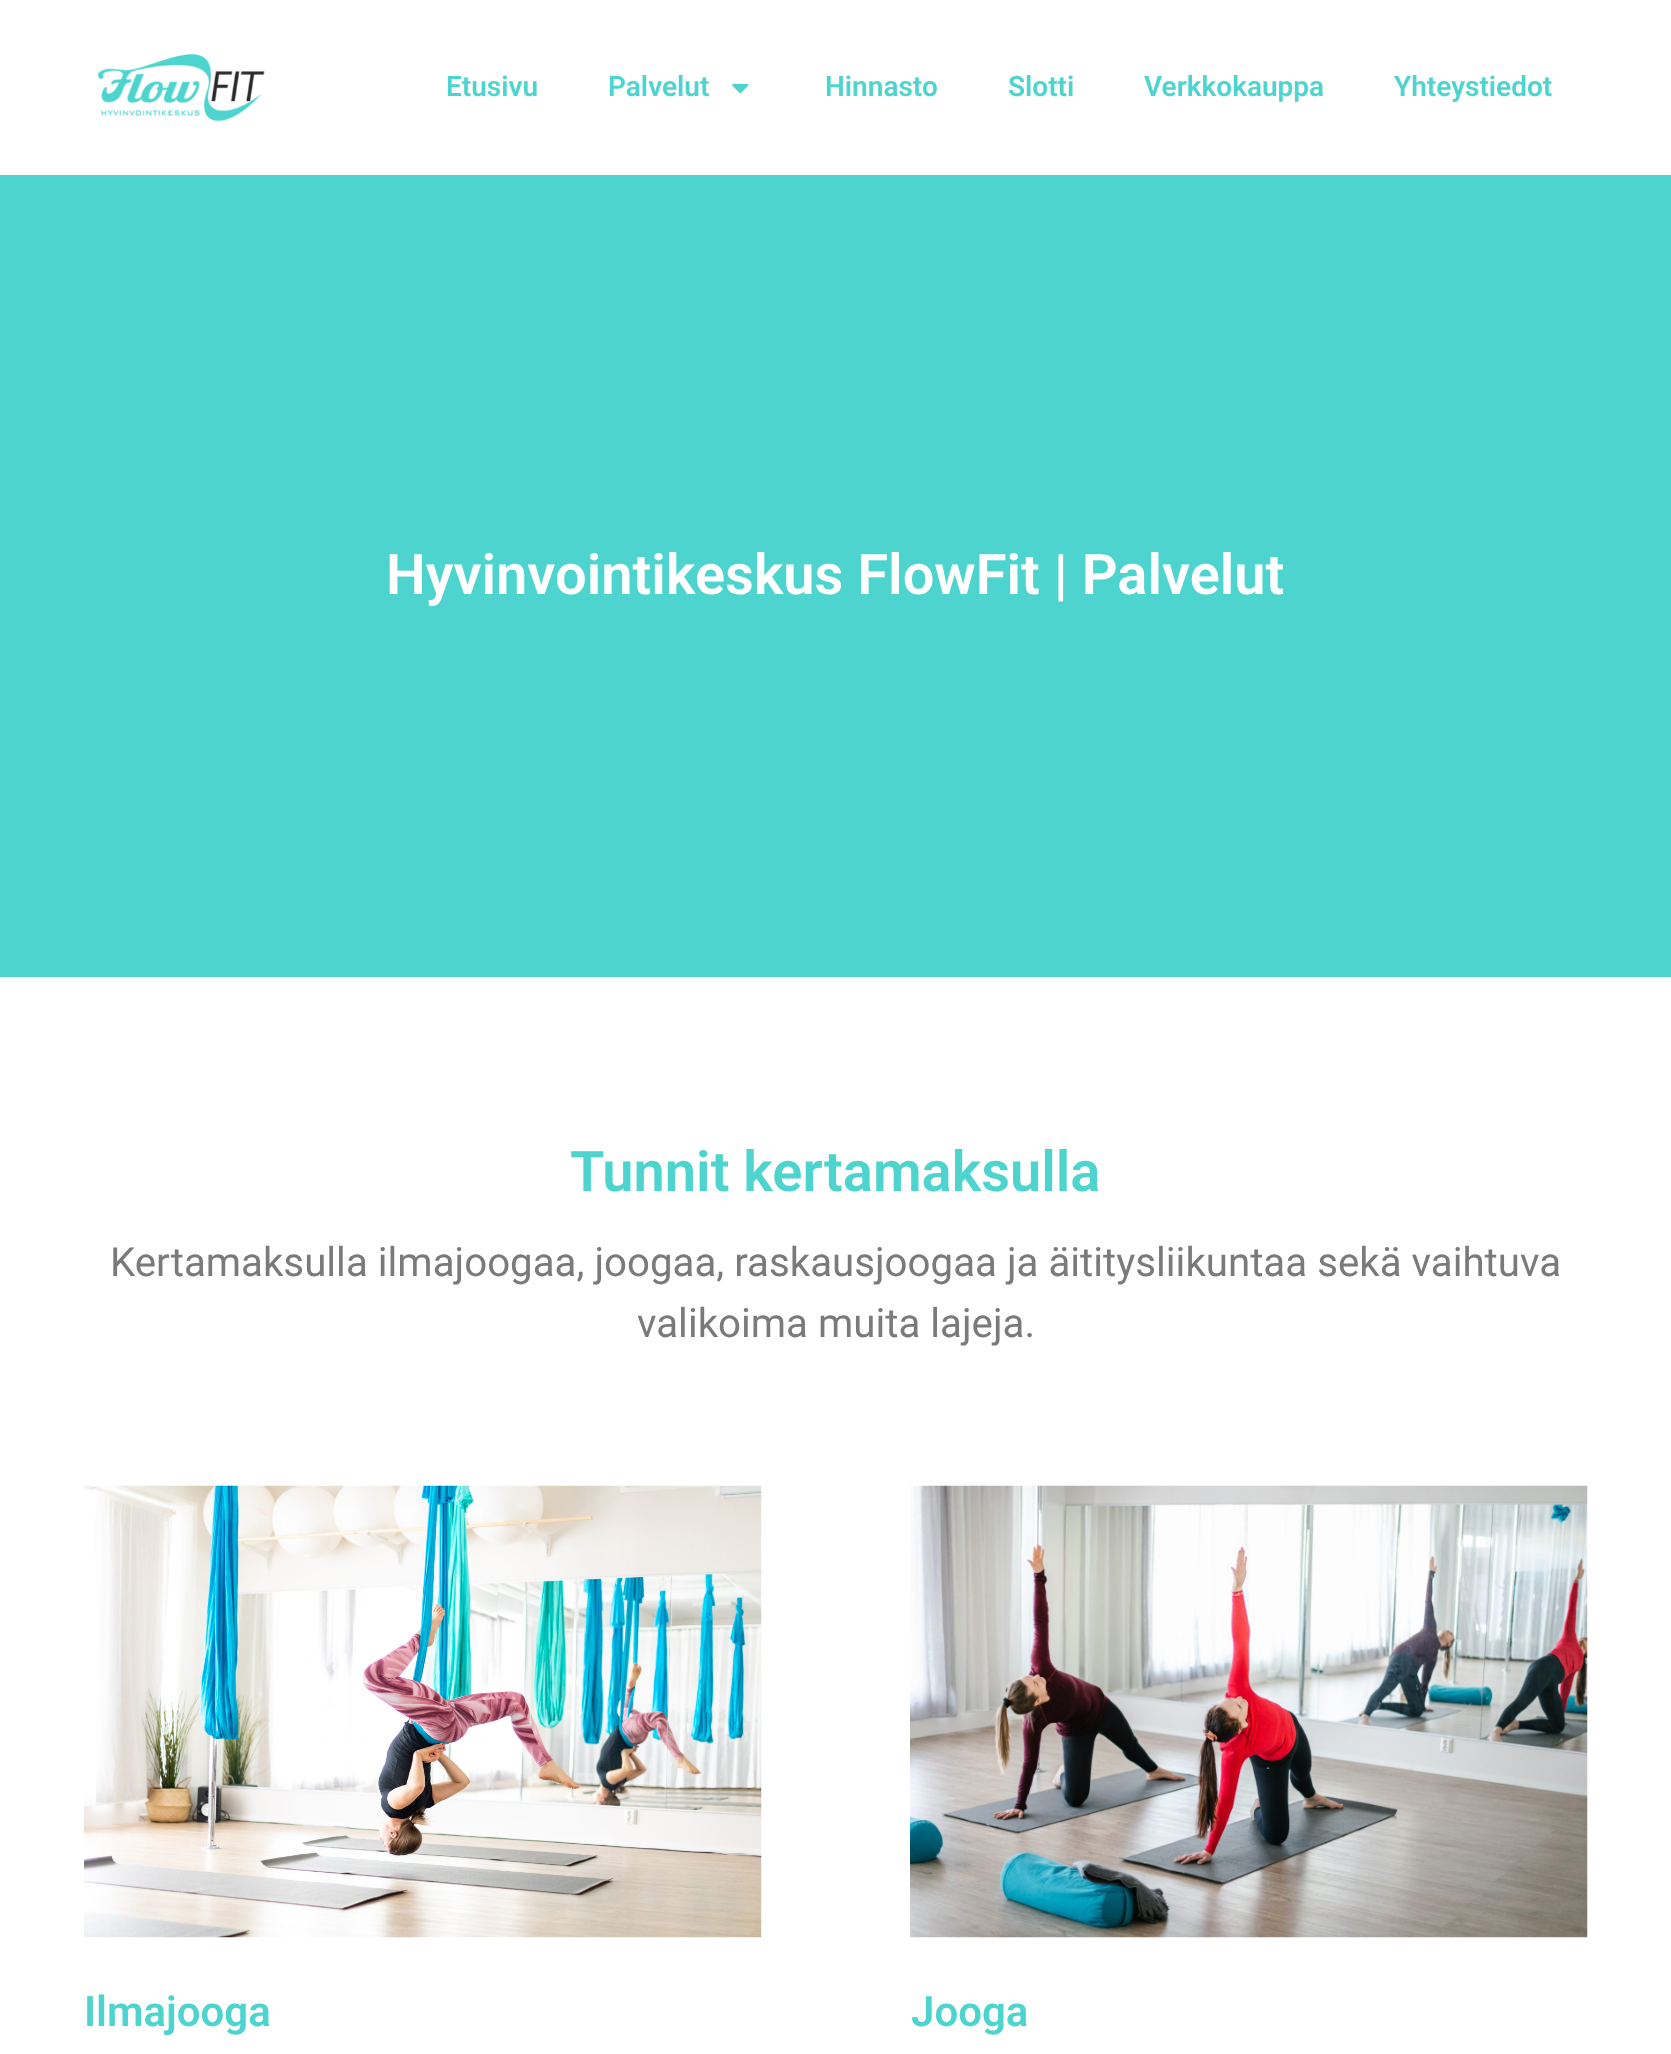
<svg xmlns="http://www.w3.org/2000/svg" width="1671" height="2054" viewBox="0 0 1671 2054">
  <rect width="100%" height="100%" fill="#ffffff"/>
  <image x="97" y="54" width="168" height="67" href="img1.png"/>
  <text x="446" y="96" font-family="Roboto" font-size="28" font-weight="600" fill="#4ed4ce">Etusivu</text>
  <text x="608" y="96" font-family="Roboto" font-size="28" font-weight="600" fill="#4ed4ce">Palvelut</text>
  <image x="732" y="84" width="17" height="10" href="img2.png"/>
  <text x="825" y="96" font-family="Roboto" font-size="28" font-weight="600" fill="#4ed4ce">Hinnasto</text>
  <text x="1008" y="96" font-family="Roboto" font-size="28" font-weight="600" fill="#4ed4ce">Slotti</text>
  <text x="1144" y="96" font-family="Roboto" font-size="28" font-weight="600" fill="#4ed4ce">Verkkokauppa</text>
  <text x="1394" y="96" font-family="Roboto" font-size="28" font-weight="600" fill="#4ed4ce">Yhteystiedot</text>
  <rect x="0" y="175" width="1671" height="802" fill="#4ed4ce"/>
  <text x="386" y="594" font-family="Roboto" font-size="56" font-weight="600" fill="#ffffff">Hyvinvointikeskus FlowFit | Palvelut</text>
  <text x="570" y="1191" font-family="Roboto" font-size="56" font-weight="600" fill="#4ed4ce">Tunnit kertamaksulla</text>
  <text x="110" y="1276" font-family="Roboto" font-size="40.25" fill="#7a7a7a">Kertamaksulla ilmajoogaa, joogaa, raskausjoogaa ja äititysliikuntaa sekä vaihtuva</text>
  <text x="637" y="1337" font-family="Roboto" font-size="40.25" fill="#7a7a7a">valikoima muita lajeja.</text>
  <image x="84" y="1485" width="678" height="453" href="img3.png"/>
  <text x="84" y="2026" font-family="Roboto" font-size="42" font-weight="600" fill="#4ed4ce">Ilmajooga</text>
  <image x="910" y="1485" width="678" height="453" href="img4.png"/>
  <text x="911" y="2026" font-family="Roboto" font-size="42" font-weight="600" fill="#4ed4ce">Jooga</text>
</svg>
